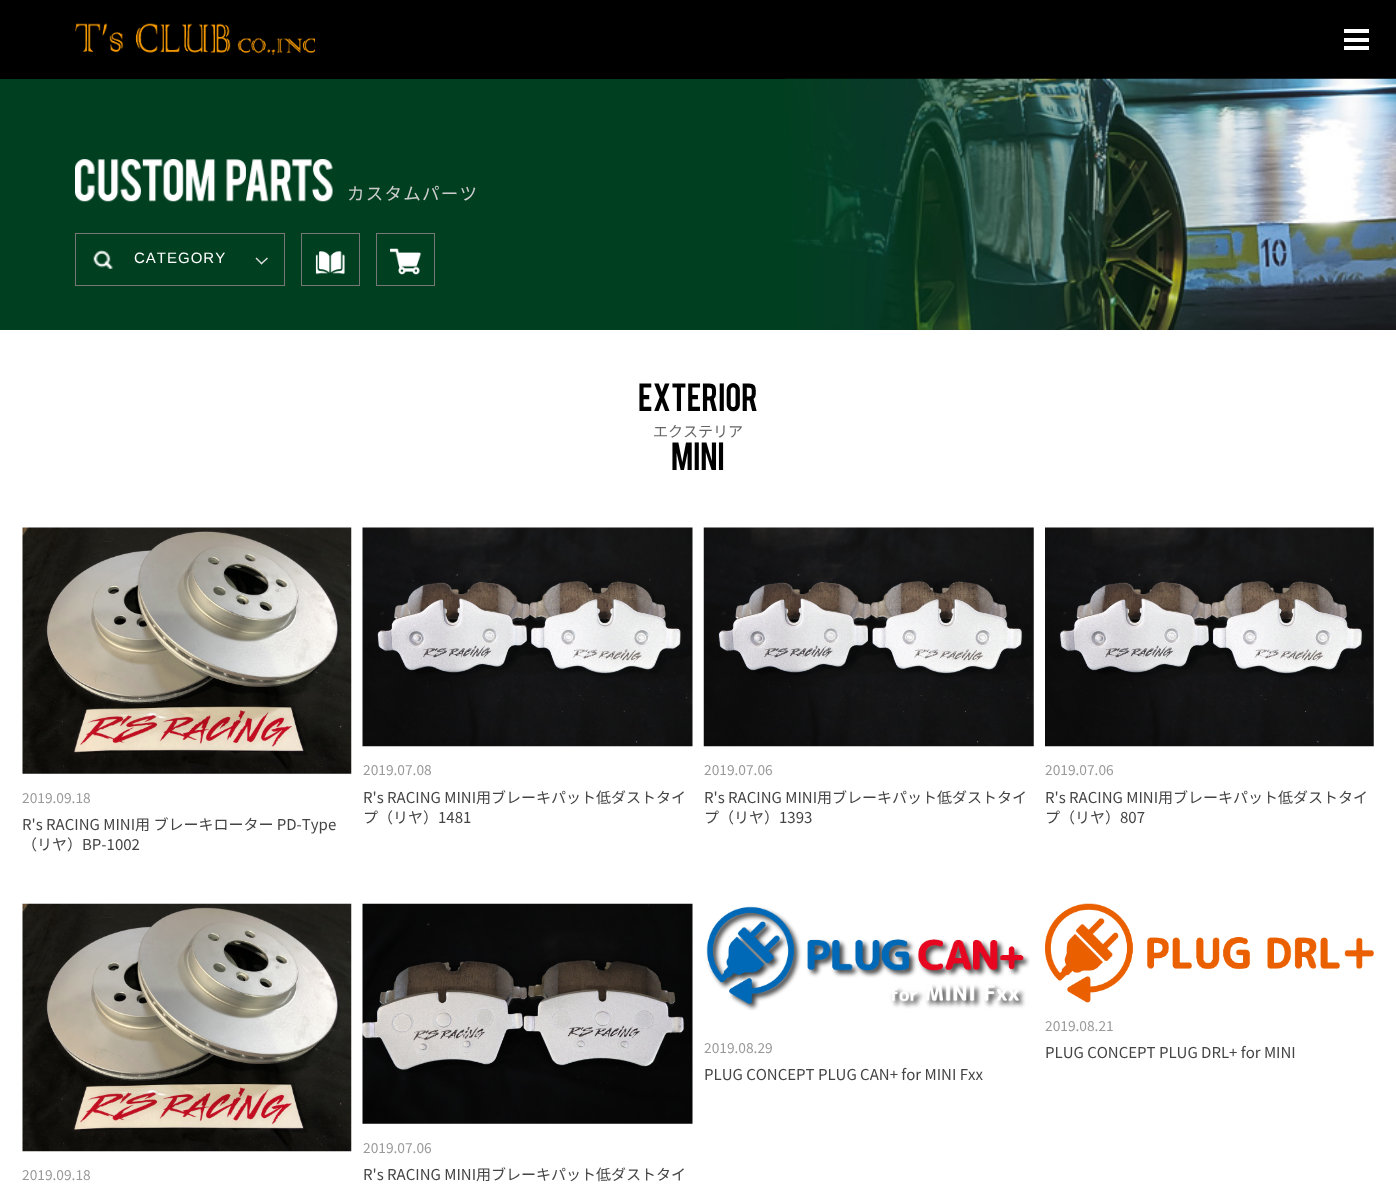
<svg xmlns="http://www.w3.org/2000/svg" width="1396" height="1194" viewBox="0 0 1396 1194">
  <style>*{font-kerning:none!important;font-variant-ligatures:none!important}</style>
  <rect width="100%" height="100%" fill="#ffffff"/>
  <rect x="0" y="0" width="1396" height="79" fill="#000000"/>
  <rect x="1344" y="29" width="25" height="4" fill="#ffffff"/>
  <rect x="1344" y="38" width="25" height="4" fill="#ffffff"/>
  <rect x="1344" y="46" width="25" height="4" fill="#ffffff"/>
  <rect x="0" y="79" width="785" height="251" fill="#004020"/>
  <image x="75" y="23" width="240" height="32" href="img1.png"/>
  <image x="785" y="78" width="611" height="252" href="img2.png"/>
  <image x="75" y="159" width="258" height="43" href="img3.png"/>
  <text x="347" y="200" font-family="Noto Sans JP" font-size="17.5" letter-spacing="1.25" fill="#cccccc">カスタムパーツ</text>
  <rect x="75.5" y="233.5" width="209" height="52" fill="none" stroke="#777777"/>
  <image x="93" y="250" width="20" height="19" href="img4.png"/>
  <text x="134" y="263" font-family="Liberation Sans" font-size="15" letter-spacing="1" fill="#ffffff">CATEGORY</text>
  <path d="M260.5 263.5L267 257.5L268 258.5L261.5 264.5Z" fill="#dddddd"/>
  <path d="M255.5 258.5L256.5 257.5L262.5 263.5L261.5 264.5Z" fill="#dddddd"/>
  <rect x="301.5" y="233.5" width="58" height="52" fill="none" stroke="#777777"/>
  <image x="315" y="251" width="30" height="24" href="img5.png"/>
  <rect x="376.5" y="233.5" width="58" height="52" fill="none" stroke="#777777"/>
  <image x="390" y="248" width="32" height="27" href="img6.png"/>
  <text x="638" y="411" font-family="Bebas" font-size="31" fill="#000000">EXTERIOR</text>
  <text x="653" y="437" font-family="Noto Sans JP" font-size="15" fill="#666666">エクステリア</text>
  <text x="671" y="470" font-family="Bebas" font-size="31" fill="#000000">MINI</text>
  <image x="22" y="527" width="330" height="247" href="img7.png"/>
  <text x="22" y="803" font-family="Noto Sans JP" font-size="13.75" fill="#999999">2019.09.18</text>
  <text x="22" y="830" font-family="Noto Sans JP" font-size="15" fill="#444444">R's RACING MINI用 ブレーキローター PD-Type</text>
  <text x="22" y="850" font-family="Noto Sans JP" font-size="15" fill="#444444">（リヤ）BP-1002</text>
  <image x="362" y="527" width="331" height="220" href="img8.png"/>
  <text x="363" y="775" font-family="Noto Sans JP" font-size="13.75" fill="#999999">2019.07.08</text>
  <text x="363" y="803" font-family="Noto Sans JP" font-size="15" fill="#444444">R's RACING MINI用ブレーキパット低ダストタイ</text>
  <text x="363" y="823" font-family="Noto Sans JP" font-size="15" fill="#444444">プ（リヤ）1481</text>
  <image x="703" y="527" width="331" height="220" href="img9.png"/>
  <text x="704" y="775" font-family="Noto Sans JP" font-size="13.75" fill="#999999">2019.07.06</text>
  <text x="704" y="803" font-family="Noto Sans JP" font-size="15" fill="#444444">R's RACING MINI用ブレーキパット低ダストタイ</text>
  <text x="704" y="823" font-family="Noto Sans JP" font-size="15" fill="#444444">プ（リヤ）1393</text>
  <image x="1045" y="527" width="329" height="220" href="img10.png"/>
  <text x="1045" y="775" font-family="Noto Sans JP" font-size="13.75" fill="#999999">2019.07.06</text>
  <text x="1045" y="803" font-family="Noto Sans JP" font-size="15" fill="#444444">R's RACING MINI用ブレーキパット低ダストタイ</text>
  <text x="1045" y="823" font-family="Noto Sans JP" font-size="15" fill="#444444">プ（リヤ）807</text>
  <image x="706" y="906" width="324" height="105" href="img11.png"/>
  <text x="704" y="1053" font-family="Noto Sans JP" font-size="13.75" fill="#999999">2019.08.29</text>
  <text x="704" y="1080" font-family="Noto Sans JP" font-size="15" fill="#444444">PLUG CONCEPT PLUG CAN+ for MINI Fxx</text>
  <image x="1045" y="903" width="329" height="100" href="img12.png"/>
  <text x="1045" y="1031" font-family="Noto Sans JP" font-size="13.75" fill="#999999">2019.08.21</text>
  <text x="1045" y="1058" font-family="Noto Sans JP" font-size="15" fill="#444444">PLUG CONCEPT PLUG DRL+ for MINI</text>
  <image x="22" y="903" width="330" height="249" href="img13.png"/>
  <text x="22" y="1180" font-family="Noto Sans JP" font-size="13.75" fill="#999999">2019.09.18</text>
  <image x="362" y="903" width="331" height="221" href="img14.png"/>
  <text x="363" y="1153" font-family="Noto Sans JP" font-size="13.75" fill="#999999">2019.07.06</text>
  <text x="363" y="1180" font-family="Noto Sans JP" font-size="15" fill="#444444">R's RACING MINI用ブレーキパット低ダストタイ</text>
</svg>
